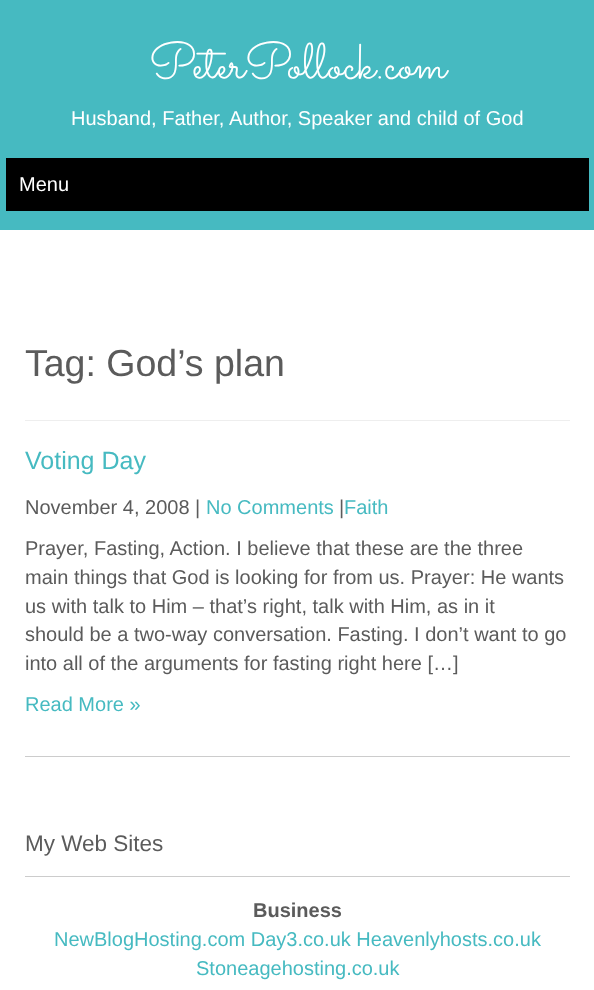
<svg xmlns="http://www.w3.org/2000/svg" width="594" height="990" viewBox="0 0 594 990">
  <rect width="100%" height="100%" fill="#ffffff"/>
  <rect x="0" y="0" width="594" height="230" fill="#46bac1"/>
  <text x="149" y="78" font-family="Sacramento" font-size="50" fill="#ffffff">PeterPollock.com</text>
  <text x="71" y="125" font-family="Liberation Sans" font-size="20" fill="#ffffff">Husband, Father, Author, Speaker and child of God</text>
  <rect x="6" y="158" width="583" height="53" fill="#000000"/>
  <text x="19" y="191" font-family="Liberation Sans" font-size="20" fill="#ffffff">Menu</text>
  <rect x="25" y="420" width="545" height="1" fill="#eeeeee"/>
  <text x="25" y="376" font-family="Liberation Sans" font-size="37.5" fill="#5b5b5b">Tag: God’s plan</text>
  <rect x="25" y="756" width="545" height="1" fill="#cccccc"/>
  <text x="25" y="469" font-family="Liberation Sans" font-size="25" fill="#46bac1">Voting Day</text>
  <text x="25" y="514" font-family="Liberation Sans" font-size="20" fill="#5b5b5b">November 4, 2008 |</text>
  <text x="206" y="514" font-family="Liberation Sans" font-size="20" fill="#46bac1">No Comments</text>
  <text x="339" y="514" font-family="Liberation Sans" font-size="20" fill="#5b5b5b">|</text>
  <text x="344" y="514" font-family="Liberation Sans" font-size="20" fill="#46bac1">Faith</text>
  <text x="25" y="555" font-family="Liberation Sans" font-size="20" fill="#5b5b5b">Prayer, Fasting, Action. I believe that these are the three</text>
  <text x="25" y="584" font-family="Liberation Sans" font-size="20" fill="#5b5b5b">main things that God is looking for from us. Prayer: He wants</text>
  <text x="25" y="613" font-family="Liberation Sans" font-size="20" fill="#5b5b5b">us with talk to Him – that’s right, talk with Him, as in it</text>
  <text x="25" y="641" font-family="Liberation Sans" font-size="20" fill="#5b5b5b">should be a two-way conversation. Fasting. I don’t want to go</text>
  <text x="25" y="670" font-family="Liberation Sans" font-size="20" fill="#5b5b5b">into all of the arguments for fasting right here […]</text>
  <text x="25" y="711" font-family="Liberation Sans" font-size="20" fill="#46bac1">Read More »</text>
  <rect x="25" y="876" width="545" height="1" fill="#cccccc"/>
  <text x="25" y="851" font-family="Liberation Sans" font-size="22.5" fill="#5b5b5b">My Web Sites</text>
  <text x="253" y="917" font-family="Liberation Sans" font-size="20" font-weight="bold" fill="#5b5b5b">Business</text>
  <text x="54" y="946" font-family="Liberation Sans" font-size="20" fill="#46bac1">NewBlogHosting.com Day3.co.uk Heavenlyhosts.co.uk</text>
  <text x="196" y="975" font-family="Liberation Sans" font-size="20" fill="#46bac1">Stoneagehosting.co.uk</text>
</svg>
